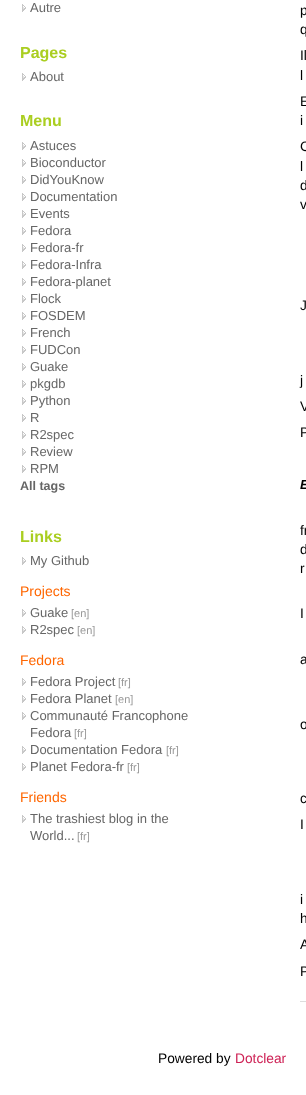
<svg xmlns="http://www.w3.org/2000/svg" width="306" height="1095" viewBox="0 0 306 1095">
  <rect width="100%" height="100%" fill="#ffffff"/>
  <image x="22" y="4" width="4" height="8" href="img1.png"/>
  <text x="30" y="12" font-family="Liberation Sans" font-size="13" fill="#666666">Autre</text>
  <text x="20" y="58" font-family="Liberation Sans" font-size="16" font-weight="bold" fill="#aace21">Pages</text>
  <image x="22" y="73" width="4" height="8" href="img1.png"/>
  <text x="30" y="81" font-family="Liberation Sans" font-size="13" fill="#666666">About</text>
  <text x="20" y="126" font-family="Liberation Sans" font-size="16" font-weight="bold" fill="#aace21">Menu</text>
  <image x="22" y="142" width="4" height="8" href="img1.png"/>
  <text x="30" y="150" font-family="Liberation Sans" font-size="13" fill="#666666">Astuces</text>
  <image x="22" y="159" width="4" height="8" href="img1.png"/>
  <text x="30" y="167" font-family="Liberation Sans" font-size="13" fill="#666666">Bioconductor</text>
  <image x="22" y="176" width="4" height="8" href="img1.png"/>
  <text x="30" y="184" font-family="Liberation Sans" font-size="13" fill="#666666">DidYouKnow</text>
  <image x="22" y="193" width="4" height="8" href="img1.png"/>
  <text x="30" y="201" font-family="Liberation Sans" font-size="13" fill="#666666">Documentation</text>
  <image x="22" y="210" width="4" height="8" href="img1.png"/>
  <text x="30" y="218" font-family="Liberation Sans" font-size="13" fill="#666666">Events</text>
  <image x="22" y="227" width="4" height="8" href="img1.png"/>
  <text x="30" y="235" font-family="Liberation Sans" font-size="13" fill="#666666">Fedora</text>
  <image x="22" y="244" width="4" height="8" href="img1.png"/>
  <text x="30" y="252" font-family="Liberation Sans" font-size="13" fill="#666666">Fedora-fr</text>
  <image x="22" y="261" width="4" height="8" href="img1.png"/>
  <text x="30" y="269" font-family="Liberation Sans" font-size="13" fill="#666666">Fedora-Infra</text>
  <image x="22" y="278" width="4" height="8" href="img1.png"/>
  <text x="30" y="286" font-family="Liberation Sans" font-size="13" fill="#666666">Fedora-planet</text>
  <image x="22" y="295" width="4" height="8" href="img1.png"/>
  <text x="30" y="303" font-family="Liberation Sans" font-size="13" fill="#666666">Flock</text>
  <image x="22" y="312" width="4" height="8" href="img1.png"/>
  <text x="30" y="320" font-family="Liberation Sans" font-size="13" fill="#666666">FOSDEM</text>
  <image x="22" y="329" width="4" height="8" href="img1.png"/>
  <text x="30" y="337" font-family="Liberation Sans" font-size="13" fill="#666666">French</text>
  <image x="22" y="346" width="4" height="8" href="img1.png"/>
  <text x="30" y="354" font-family="Liberation Sans" font-size="13" fill="#666666">FUDCon</text>
  <image x="22" y="363" width="4" height="8" href="img1.png"/>
  <text x="30" y="371" font-family="Liberation Sans" font-size="13" fill="#666666">Guake</text>
  <image x="22" y="380" width="4" height="8" href="img1.png"/>
  <text x="30" y="388" font-family="Liberation Sans" font-size="13" fill="#666666">pkgdb</text>
  <image x="22" y="397" width="4" height="8" href="img1.png"/>
  <text x="30" y="405" font-family="Liberation Sans" font-size="13" fill="#666666">Python</text>
  <image x="22" y="414" width="4" height="8" href="img1.png"/>
  <text x="30" y="422" font-family="Liberation Sans" font-size="13" fill="#666666">R</text>
  <image x="22" y="431" width="4" height="8" href="img1.png"/>
  <text x="30" y="439" font-family="Liberation Sans" font-size="13" fill="#666666">R2spec</text>
  <image x="22" y="448" width="4" height="8" href="img1.png"/>
  <text x="30" y="456" font-family="Liberation Sans" font-size="13" fill="#666666">Review</text>
  <image x="22" y="465" width="4" height="8" href="img1.png"/>
  <text x="30" y="473" font-family="Liberation Sans" font-size="13" fill="#666666">RPM</text>
  <text x="20" y="490" font-family="Liberation Sans" font-size="12.5" font-weight="bold" fill="#666666">All tags</text>
  <text x="20" y="542" font-family="Liberation Sans" font-size="16" font-weight="bold" fill="#aace21">Links</text>
  <image x="22" y="557" width="4" height="8" href="img1.png"/>
  <text x="30" y="565" font-family="Liberation Sans" font-size="13" fill="#666666">My Github</text>
  <text x="20" y="596" font-family="Liberation Sans" font-size="14" fill="#ff6600">Projects</text>
  <image x="22" y="609" width="4" height="8" href="img1.png"/>
  <text x="30" y="617" font-family="Liberation Sans" font-size="13" fill="#666666">Guake</text>
  <text x="71" y="617" font-family="Liberation Sans" font-size="11" fill="#999999">[en]</text>
  <image x="22" y="626" width="4" height="8" href="img1.png"/>
  <text x="30" y="634" font-family="Liberation Sans" font-size="13" fill="#666666">R2spec</text>
  <text x="77" y="634" font-family="Liberation Sans" font-size="11" fill="#999999">[en]</text>
  <text x="20" y="665" font-family="Liberation Sans" font-size="14" fill="#ff6600">Fedora</text>
  <image x="22" y="678" width="4" height="8" href="img1.png"/>
  <text x="30" y="686" font-family="Liberation Sans" font-size="13" fill="#666666">Fedora Project</text>
  <text x="118" y="686" font-family="Liberation Sans" font-size="11" fill="#999999">[fr]</text>
  <image x="22" y="695" width="4" height="8" href="img1.png"/>
  <text x="30" y="703" font-family="Liberation Sans" font-size="13" fill="#666666">Fedora Planet</text>
  <text x="115" y="703" font-family="Liberation Sans" font-size="11" fill="#999999">[en]</text>
  <image x="22" y="712" width="4" height="8" href="img1.png"/>
  <text x="30" y="720" font-family="Liberation Sans" font-size="13" fill="#666666">Communauté Francophone</text>
  <text x="30" y="737" font-family="Liberation Sans" font-size="13" fill="#666666">Fedora</text>
  <text x="74" y="737" font-family="Liberation Sans" font-size="11" fill="#999999">[fr]</text>
  <image x="22" y="746" width="4" height="8" href="img1.png"/>
  <text x="30" y="754" font-family="Liberation Sans" font-size="13" fill="#666666">Documentation Fedora</text>
  <text x="166" y="754" font-family="Liberation Sans" font-size="11" fill="#999999">[fr]</text>
  <image x="22" y="763" width="4" height="8" href="img1.png"/>
  <text x="30" y="771" font-family="Liberation Sans" font-size="13" fill="#666666">Planet Fedora-fr</text>
  <text x="127" y="771" font-family="Liberation Sans" font-size="11" fill="#999999">[fr]</text>
  <text x="20" y="802" font-family="Liberation Sans" font-size="14" fill="#ff6600">Friends</text>
  <image x="22" y="815" width="4" height="8" href="img1.png"/>
  <text x="30" y="823" font-family="Liberation Sans" font-size="13" fill="#666666">The trashiest blog in the</text>
  <text x="30" y="840" font-family="Liberation Sans" font-size="13" fill="#666666">World...</text>
  <text x="77" y="840" font-family="Liberation Sans" font-size="11" fill="#999999">[fr]</text>
  <rect x="300" y="1001" width="6" height="1" fill="#dddddd"/>
  <text x="300" y="15" font-family="Liberation Sans" font-size="13.75" fill="#000000">p</text>
  <text x="300" y="34" font-family="Liberation Sans" font-size="13.75" fill="#000000">q</text>
  <text x="300" y="60" font-family="Liberation Sans" font-size="13.75" fill="#000000">Il</text>
  <text x="300" y="80" font-family="Liberation Sans" font-size="13.75" fill="#000000">l</text>
  <text x="300" y="106" font-family="Liberation Sans" font-size="13.75" fill="#000000">E</text>
  <text x="300" y="125" font-family="Liberation Sans" font-size="13.75" fill="#000000">i</text>
  <text x="300" y="151" font-family="Liberation Sans" font-size="13.75" fill="#000000">C</text>
  <text x="300" y="171" font-family="Liberation Sans" font-size="13.75" fill="#000000">l</text>
  <text x="300" y="190" font-family="Liberation Sans" font-size="13.75" fill="#000000">d</text>
  <text x="300" y="209" font-family="Liberation Sans" font-size="13.75" fill="#000000">v</text>
  <text x="300" y="310" font-family="Liberation Sans" font-size="13.75" fill="#000000">J</text>
  <text x="300" y="385" font-family="Liberation Sans" font-size="13.75" fill="#000000">j</text>
  <text x="300" y="411" font-family="Liberation Sans" font-size="13.75" fill="#000000">V</text>
  <text x="300" y="437" font-family="Liberation Sans" font-size="13.75" fill="#000000">P</text>
  <text x="300" y="489" font-family="Liberation Sans" font-size="13" font-weight="bold" font-style="italic" fill="#000000">E</text>
  <text x="300" y="535" font-family="Liberation Sans" font-size="13.75" fill="#000000">fr</text>
  <text x="300" y="554" font-family="Liberation Sans" font-size="13.75" fill="#000000">d</text>
  <text x="300" y="573" font-family="Liberation Sans" font-size="13.75" fill="#000000">r</text>
  <text x="300" y="618" font-family="Liberation Sans" font-size="13.75" fill="#000000">I</text>
  <text x="300" y="664" font-family="Liberation Sans" font-size="13.75" fill="#000000">a</text>
  <text x="300" y="729" font-family="Liberation Sans" font-size="13.75" fill="#000000">o</text>
  <text x="300" y="803" font-family="Liberation Sans" font-size="13.75" fill="#000000">c</text>
  <text x="300" y="829" font-family="Liberation Sans" font-size="13.75" fill="#000000">I</text>
  <text x="300" y="904" font-family="Liberation Sans" font-size="13.75" fill="#000000">i</text>
  <text x="300" y="923" font-family="Liberation Sans" font-size="13.75" fill="#000000">h</text>
  <text x="300" y="949" font-family="Liberation Sans" font-size="13.75" fill="#000000">A</text>
  <text x="300" y="976" font-family="Liberation Sans" font-size="13.75" fill="#000000">P</text>
  <text x="158" y="1063" font-family="Liberation Sans" font-size="13.75" fill="#000000">Powered by</text>
  <text x="235" y="1063" font-family="Liberation Sans" font-size="13.75" fill="#ce2155">Dotclear</text>
</svg>
